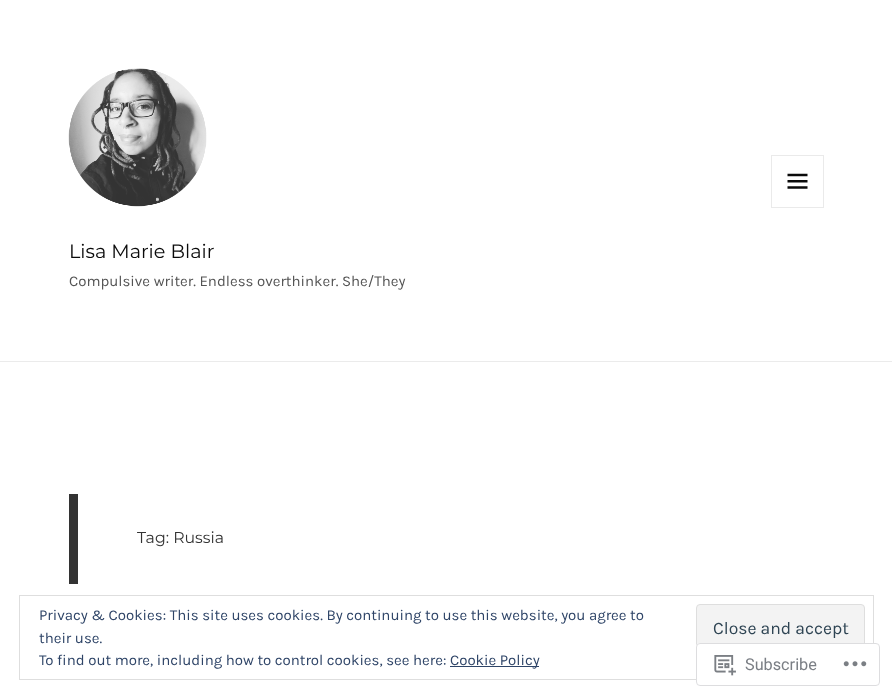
<svg xmlns="http://www.w3.org/2000/svg" width="892" height="698" viewBox="0 0 892 698">
  <rect width="100%" height="100%" fill="#ffffff"/>
  <rect x="0" y="361" width="892" height="1" fill="#ebebeb"/>
  <image x="68" y="68" width="139" height="139" href="img1.png"/>
  <rect x="771.5" y="155.5" width="52" height="52" fill="none" stroke="#eaeaea"/>
  <image x="787" y="173" width="21" height="16" href="img2.png"/>
  <text x="69" y="258" font-family="Montserrat" font-size="19.25" font-weight="100" fill="#0a0a0a">Lisa Marie Blair</text>
  <text x="69" y="286" font-family="Karla" font-size="15" fill="#545454">Compulsive writer. Endless overthinker. She/They</text>
  <rect x="69" y="494" width="9" height="90" fill="#333333"/>
  <text x="137" y="543" font-family="Montserrat" font-size="15.75" font-weight="100" fill="#333333">Tag: Russia</text>
  <rect x="19.5" y="595.5" width="854" height="84" fill="none" stroke="#dedede"/>
  <text x="39" y="620" font-family="Karla" font-size="15" fill="#2e4467">Privacy &amp; Cookies: This site uses cookies. By continuing to use this website, you agree to</text>
  <text x="39" y="643" font-family="Karla" font-size="15" fill="#2e4467">their use.</text>
  <rect x="696.5" y="604.5" width="168" height="48" rx="3.5" fill="#f3f3f3" stroke="#dedede"/>
  <text x="713" y="634" font-family="Karla" font-size="17.5" fill="#2e4453">Close and accept</text>
  <text x="39" y="665" font-family="Karla" font-size="15" fill="#2e4467">To find out more, including how to control cookies, see here:</text>
  <rect x="450" y="666" width="89" height="1" fill="#2e4467"/>
  <text x="450" y="665" font-family="Karla" font-size="15" fill="#2e4467">Cookie Policy</text>
  <rect x="696" y="643" width="184" height="43" rx="4" fill="#ffffff" fill-opacity="0.98"/>
  <rect x="696.5" y="643.5" width="183" height="42" rx="3.5" fill="none" stroke="#dcdcde" stroke-opacity="0.98"/>
  <image x="714" y="655" width="22" height="21" href="img3.png"/>
  <text x="745" y="670" font-family="Roboto" font-size="16.25" fill="#7b7f85">Subscribe</text>
  <image x="843" y="661" width="24" height="6" href="img4.png"/>
</svg>
